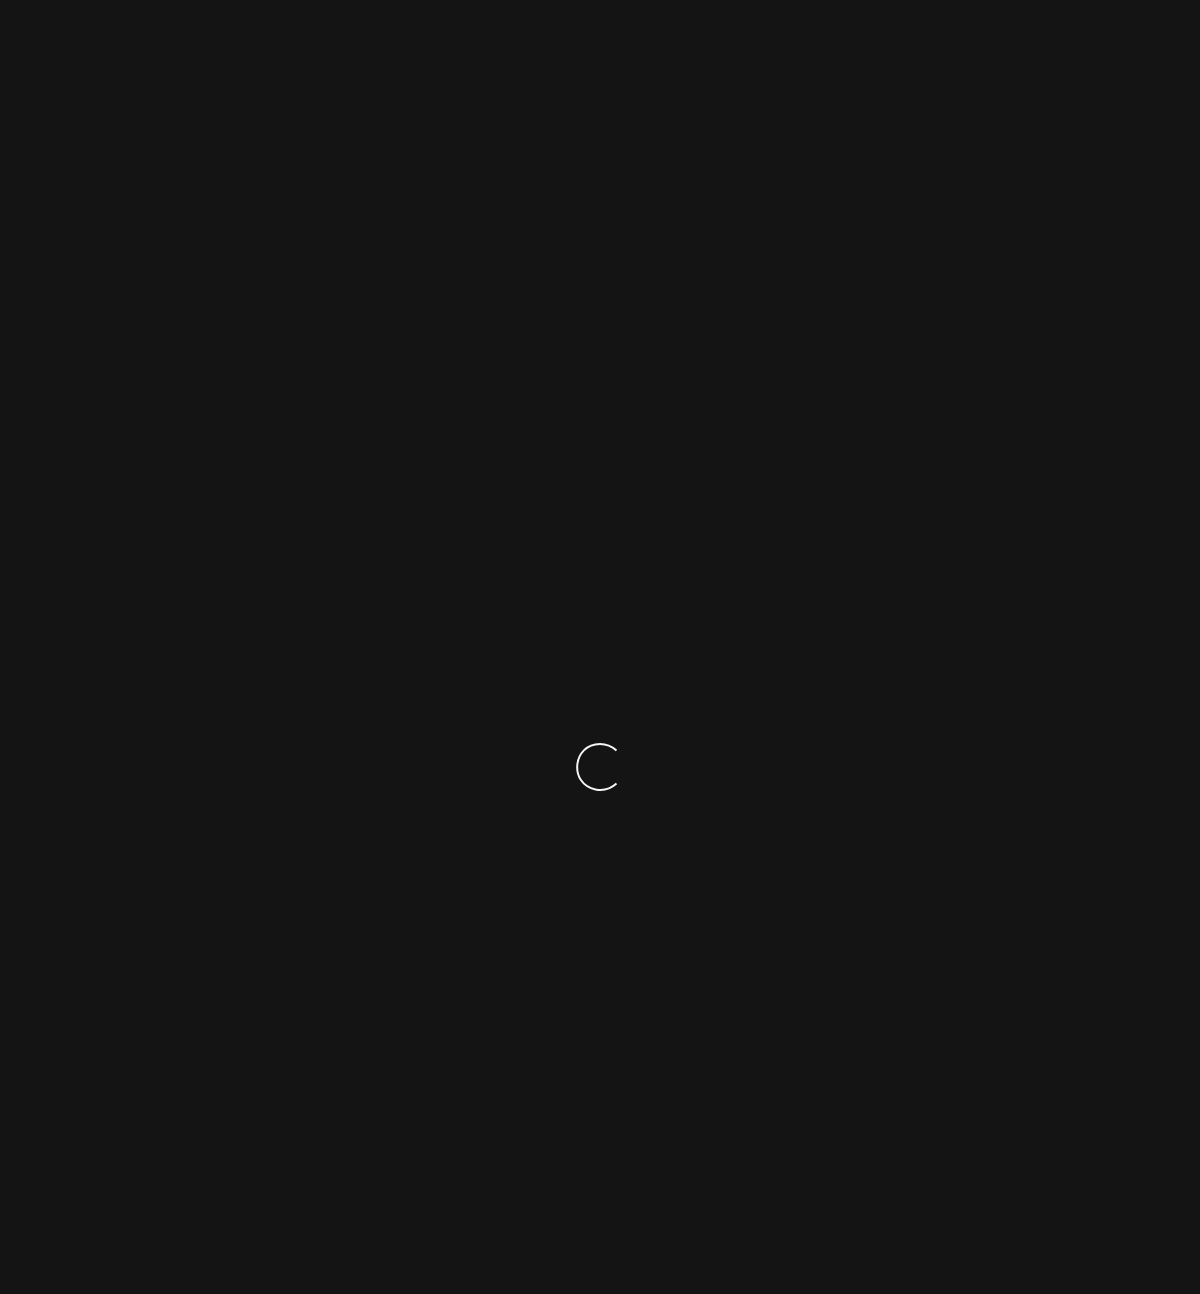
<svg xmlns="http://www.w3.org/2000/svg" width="1200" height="1294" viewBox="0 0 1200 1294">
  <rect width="100%" height="100%" fill="#141414"/>
  <path d="M616.5 783.5C611 788.5 603 791 595.5 789.5C568.5 784 572.5 744 600 744C606 744 612 746.5 616.5 750.5" fill="none" stroke="#f5f5f5" stroke-width="2"/>
</svg>
